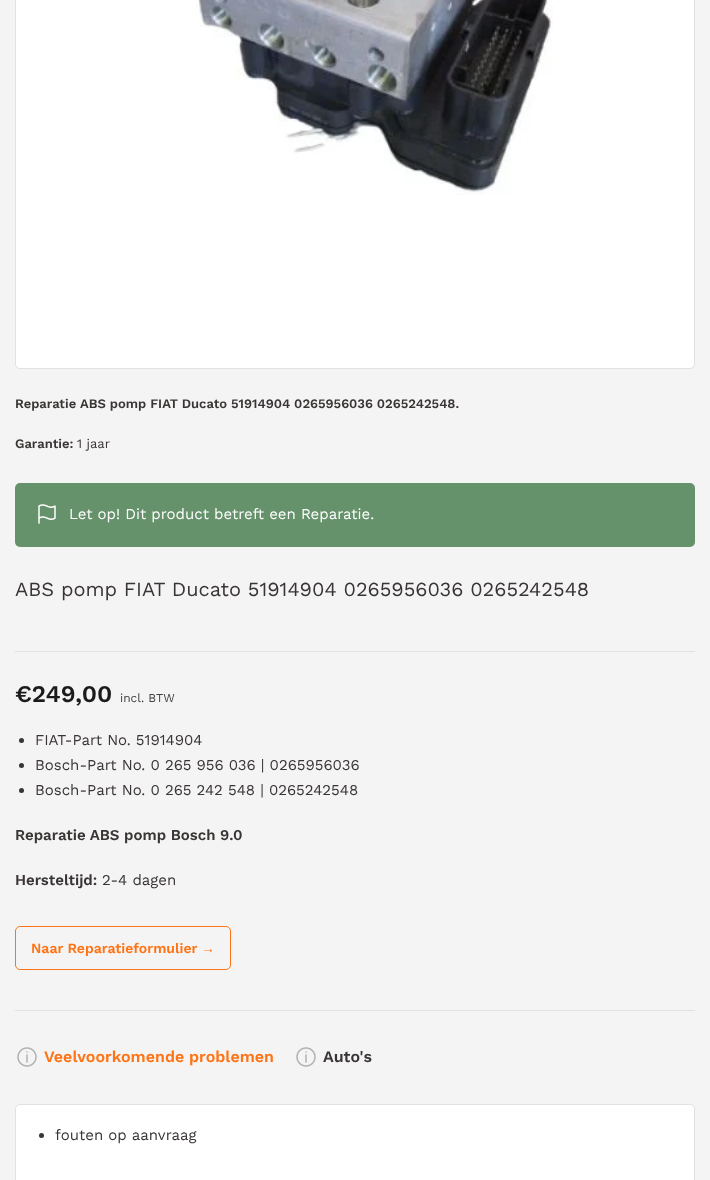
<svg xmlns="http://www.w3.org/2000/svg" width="710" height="1180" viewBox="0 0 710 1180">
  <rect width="100%" height="100%" fill="#f4f4f4"/>
  <rect x="15.5" y="-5.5" width="679" height="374" rx="4.5" fill="#ffffff" stroke="#e1e1e1"/>
  <image x="195" y="0" width="358" height="195" href="img1.png"/>
  <text x="15" y="408" font-family="Work Sans" font-size="13" font-weight="600" fill="#3a3535">Reparatie</text>
  <text x="80" y="408" font-family="Work Sans" font-size="13" font-weight="600" fill="#3a3535">ABS pomp FIAT Ducato 51914904 0265956036 0265242548.</text>
  <text x="15" y="448" font-family="Work Sans" font-size="13" font-weight="600" fill="#3a3535">Garantie:</text>
  <text x="77" y="448" font-family="Work Sans" font-size="13" fill="#3a3535">1 jaar</text>
  <rect x="15" y="483" width="680" height="64" rx="5" fill="#66926b"/>
  <image x="38" y="504" width="18" height="20" href="img2.png"/>
  <text x="69" y="519" font-family="Work Sans" font-size="15" fill="#ffffff">Let op! Dit product betreft een Reparatie.</text>
  <rect x="15" y="651" width="680" height="1" fill="#e1e1e1"/>
  <text x="15" y="596" font-family="Work Sans" font-size="20" fill="#3a3535">ABS pomp FIAT Ducato 51914904 0265956036 0265242548</text>
  <text x="15" y="702" font-family="Work Sans" font-size="24" font-weight="600" fill="#1b1b1b">€249,00</text>
  <text x="120" y="702" font-family="Work Sans" font-size="12" fill="#404040">incl. BTW</text>
  <circle cx="21.5" cy="740.5" r="2.5" fill="#3a3535"/>
  <text x="35" y="745" font-family="Work Sans" font-size="15" fill="#3a3535">FIAT-Part No. 51914904</text>
  <circle cx="21.5" cy="765.5" r="2.5" fill="#3a3535"/>
  <text x="35" y="770" font-family="Work Sans" font-size="15" fill="#3a3535">Bosch-Part No. 0 265 956 036 | 0265956036</text>
  <circle cx="21.5" cy="790.5" r="2.5" fill="#3a3535"/>
  <text x="35" y="795" font-family="Work Sans" font-size="15" fill="#3a3535">Bosch-Part No. 0 265 242 548 | 0265242548</text>
  <text x="15" y="840" font-family="Work Sans" font-size="15" font-weight="600" fill="#3a3535">Reparatie ABS pomp Bosch 9.0</text>
  <text x="15" y="885" font-family="Work Sans" font-size="15" font-weight="600" fill="#3a3535">Hersteltijd:</text>
  <text x="102" y="885" font-family="Work Sans" font-size="15" fill="#3a3535">2-4 dagen</text>
  <rect x="15.5" y="926.5" width="215" height="43" rx="4.5" fill="none" stroke="#ff7315"/>
  <text x="31" y="953" font-family="Work Sans" font-size="14" font-weight="600" fill="#ff7315">Naar Reparatieformulier</text>
  <text x="201" y="953" font-family="Liberation Sans" font-size="14" font-weight="bold" fill="#ff7315">→</text>
  <rect x="15" y="1010" width="680" height="1" fill="#e1e1e1"/>
  <image x="17" y="1047" width="20" height="20" href="img3.png"/>
  <text x="44" y="1062" font-family="Work Sans" font-size="16" font-weight="600" fill="#ff7315">Veelvoorkomende problemen</text>
  <image x="296" y="1047" width="20" height="20" href="img3.png"/>
  <text x="323" y="1062" font-family="Work Sans" font-size="16" font-weight="600" fill="#3a3535">Auto's</text>
  <rect x="15.5" y="1104.5" width="679" height="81" rx="4.5" fill="#ffffff" stroke="#e1e1e1"/>
  <circle cx="41.5" cy="1135.5" r="2.5" fill="#3a3535"/>
  <text x="55" y="1140" font-family="Work Sans" font-size="15" fill="#3a3535">fouten op aanvraag</text>
</svg>
